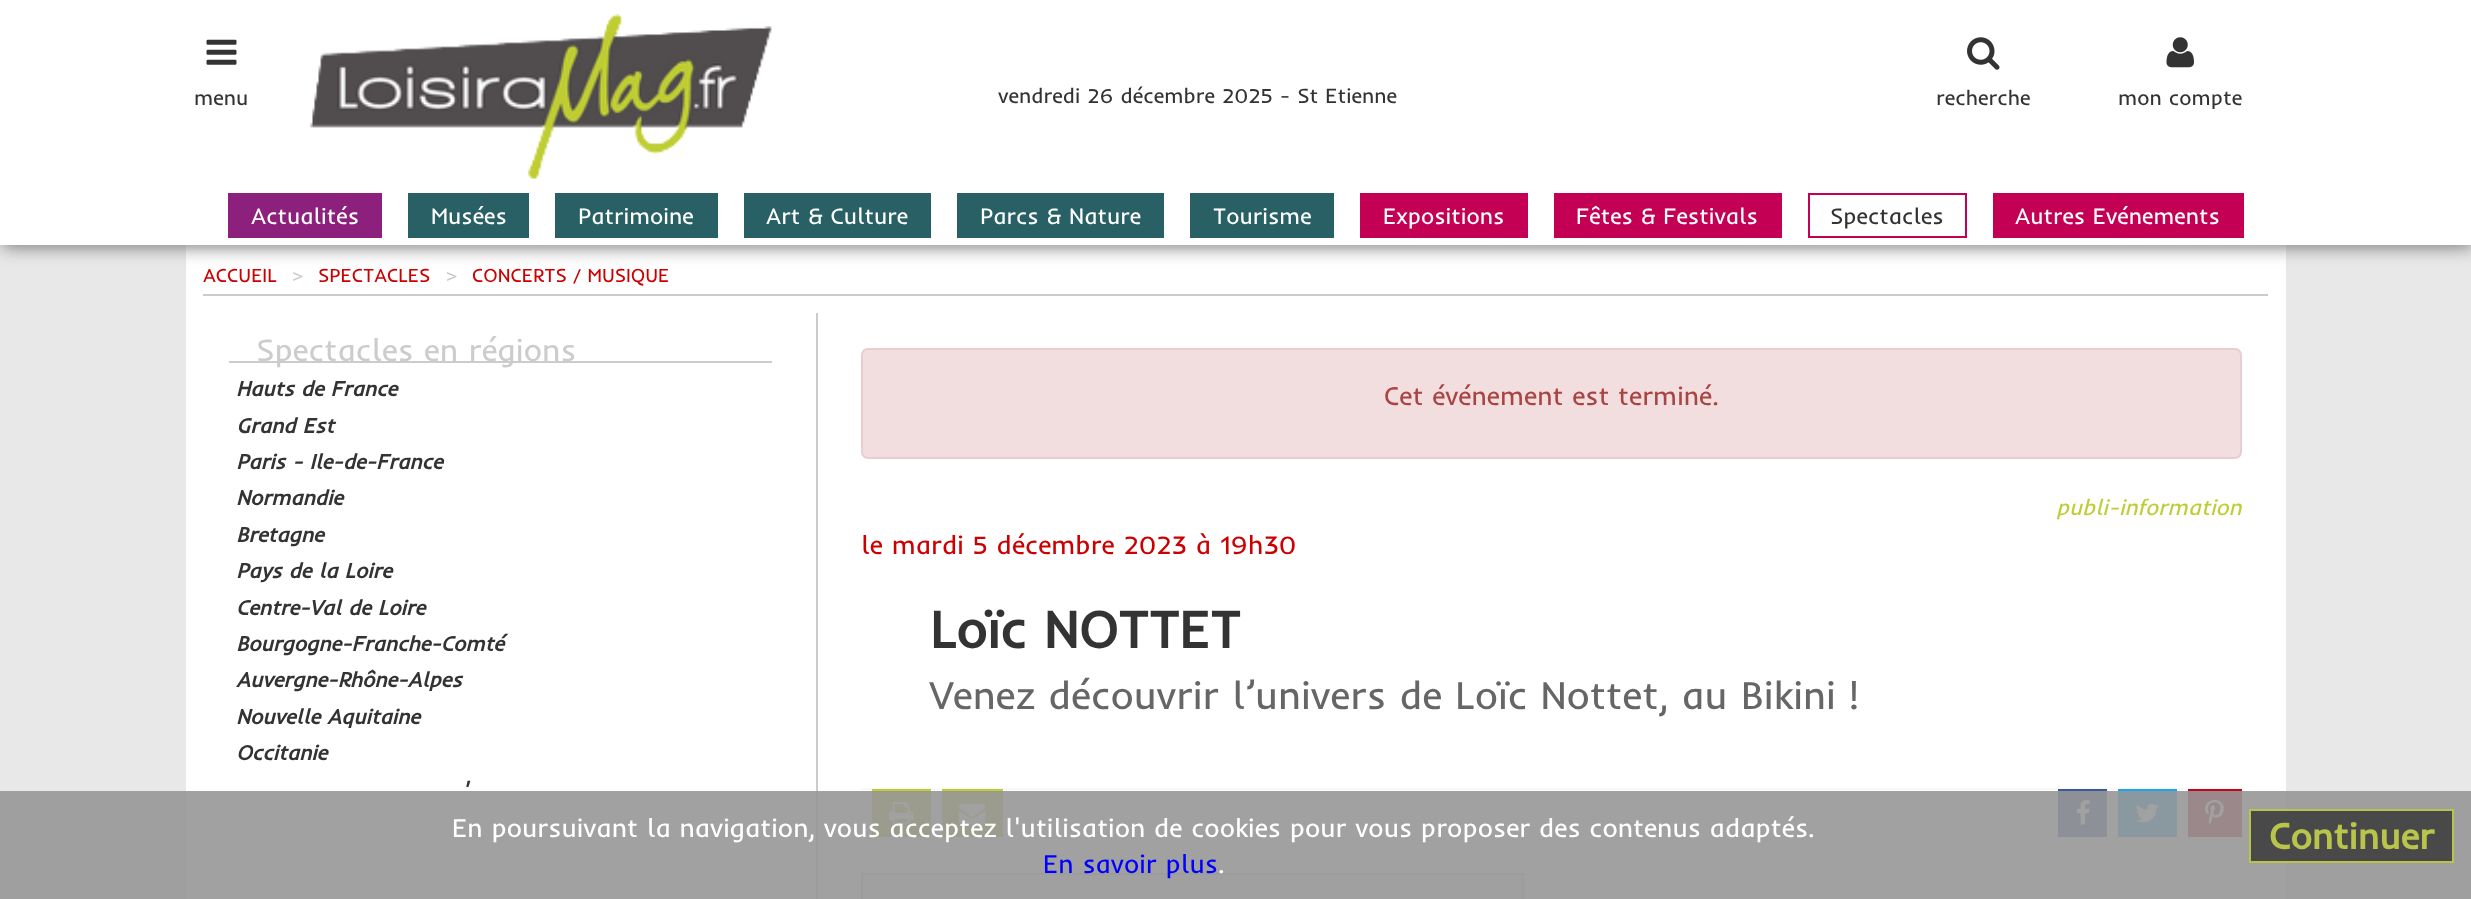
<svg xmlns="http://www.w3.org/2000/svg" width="2471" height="899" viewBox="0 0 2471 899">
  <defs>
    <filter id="blur1" x="-50%" y="-200%" width="200%" height="500%"><feGaussianBlur stdDeviation="9"/></filter>
  </defs>
  <rect width="100%" height="100%" fill="#e8e8e8"/>
  <rect x="186" y="245" width="2100" height="654" fill="#ffffff"/>
  <rect x="2" y="2" width="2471" height="245" fill="#777777" filter="url(#blur1)"/>
  <rect x="0" y="0" width="2471" height="245" fill="#ffffff"/>
  <image x="206" y="39" width="31" height="26" href="img1.png"/>
  <text x="194" y="105" font-family="Inder" font-size="21" fill="#333333">menu</text>
  <image x="310" y="14" width="462" height="165" href="img2.png"/>
  <text x="998" y="103" font-family="Inder" font-size="21" fill="#333333">vendredi 26 décembre 2025 - St Etienne</text>
  <image x="1967" y="37" width="33" height="33" href="img3.png"/>
  <text x="1936" y="105" font-family="Inder" font-size="21" fill="#333333">recherche</text>
  <image x="2166" y="37" width="28" height="31" href="img4.png"/>
  <text x="2118" y="105" font-family="Inder" font-size="21" fill="#333333">mon compte</text>
  <rect x="228" y="193" width="154" height="45" fill="#8d207c"/>
  <text x="251" y="224" font-family="Inder" font-size="22.75" fill="#ffffff">Actualités</text>
  <rect x="408" y="193" width="121" height="45" fill="#286065"/>
  <text x="431" y="224" font-family="Inder" font-size="22.75" fill="#ffffff">Musées</text>
  <rect x="555" y="193" width="163" height="45" fill="#286065"/>
  <text x="578" y="224" font-family="Inder" font-size="22.75" fill="#ffffff">Patrimoine</text>
  <rect x="744" y="193" width="187" height="45" fill="#286065"/>
  <text x="766" y="224" font-family="Inder" font-size="22.75" fill="#ffffff">Art &amp; Culture</text>
  <rect x="957" y="193" width="207" height="45" fill="#286065"/>
  <text x="980" y="224" font-family="Inder" font-size="22.75" fill="#ffffff">Parcs &amp; Nature</text>
  <rect x="1190" y="193" width="144" height="45" fill="#286065"/>
  <text x="1213" y="224" font-family="Inder" font-size="22.75" fill="#ffffff">Tourisme</text>
  <rect x="1360" y="193" width="168" height="45" fill="#c40054"/>
  <text x="1383" y="224" font-family="Inder" font-size="22.75" fill="#ffffff">Expositions</text>
  <rect x="1554" y="193" width="228" height="45" fill="#c40054"/>
  <text x="1576" y="224" font-family="Inder" font-size="22.75" fill="#ffffff">Fêtes &amp; Festivals</text>
  <rect x="1809" y="194" width="157" height="43" fill="none" stroke="#c40054" stroke-width="2"/>
  <text x="1830" y="224" font-family="Inder" font-size="22.75" fill="#333333">Spectacles</text>
  <rect x="1993" y="193" width="251" height="45" fill="#c40054"/>
  <text x="2015" y="224" font-family="Inder" font-size="22.75" fill="#ffffff">Autres Evénements</text>
  <rect x="203" y="294" width="2065" height="2" fill="#cccccc"/>
  <text x="203" y="282" font-family="Inder" font-size="19.25" fill="#cc0000">ACCUEIL</text>
  <text x="292" y="282" font-family="Inder" font-size="19.25" fill="#cccccc">&gt;</text>
  <text x="318" y="282" font-family="Inder" font-size="19.25" fill="#cc0000">SPECTACLES</text>
  <text x="446" y="282" font-family="Inder" font-size="19.25" fill="#cccccc">&gt;</text>
  <text x="472" y="282" font-family="Inder" font-size="19.25" fill="#cc0000">CONCERTS / MUSIQUE</text>
  <rect x="229" y="361" width="543" height="2" fill="#cccccc"/>
  <text x="256" y="361" font-family="Inder" font-size="31.5" fill="#cccccc">Spectacles en régions</text>
  <text x="236" y="396" font-family="Inder" font-size="21" font-weight="bold" font-style="italic" fill="#333333">Hauts de France</text>
  <text x="236" y="433" font-family="Inder" font-size="21" font-weight="bold" font-style="italic" fill="#333333">Grand Est</text>
  <text x="236" y="469" font-family="Inder" font-size="21" font-weight="bold" font-style="italic" fill="#333333">Paris - Ile-de-France</text>
  <text x="236" y="505" font-family="Inder" font-size="21" font-weight="bold" font-style="italic" fill="#333333">Normandie</text>
  <text x="236" y="542" font-family="Inder" font-size="21" font-weight="bold" font-style="italic" fill="#333333">Bretagne</text>
  <text x="236" y="578" font-family="Inder" font-size="21" font-weight="bold" font-style="italic" fill="#333333">Pays de la Loire</text>
  <text x="236" y="615" font-family="Inder" font-size="21" font-weight="bold" font-style="italic" fill="#333333">Centre-Val de Loire</text>
  <text x="236" y="651" font-family="Inder" font-size="21" font-weight="bold" font-style="italic" fill="#333333">Bourgogne-Franche-Comté</text>
  <text x="236" y="687" font-family="Inder" font-size="21" font-weight="bold" font-style="italic" fill="#333333">Auvergne-Rhône-Alpes</text>
  <text x="236" y="724" font-family="Inder" font-size="21" font-weight="bold" font-style="italic" fill="#333333">Nouvelle Aquitaine</text>
  <text x="236" y="760" font-family="Inder" font-size="21" font-weight="bold" font-style="italic" fill="#333333">Occitanie</text>
  <text x="462" y="797" font-family="Inder" font-size="21" font-weight="bold" font-style="italic" fill="#333333">'</text>
  <rect x="816" y="313" width="2" height="586" fill="#cccccc"/>
  <rect x="862" y="349" width="1379" height="109" rx="6" fill="#f2dede" stroke="#ebccd1" stroke-width="2"/>
  <text x="1384" y="405" font-family="Inder" font-size="26.25" fill="#a94442">Cet événement est terminé.</text>
  <text x="2056" y="515" font-family="Inder" font-size="22.25" font-style="italic" fill="#bfcd35">publi-information</text>
  <text x="861" y="554" font-family="Inder" font-size="26.25" fill="#cc0000">le mardi 5 décembre 2023 à 19h30</text>
  <text x="930" y="648" font-family="Inder" font-size="52.5" font-weight="bold" fill="#333333">Loïc NOTTET</text>
  <text x="930" y="709" font-family="Inder" font-size="39.4" fill="#666666">Venez découvrir l’univers de Loïc Nottet, au Bikini !</text>
  <rect x="861" y="788" width="1381" height="2" fill="#f8f8f8"/>
  <rect x="861" y="837" width="1381" height="2" fill="#f8f8f8"/>
  <rect x="872" y="789" width="59" height="48" fill="#bfcd35"/>
  <image x="889" y="801" width="25" height="24" href="img5.png"/>
  <rect x="942" y="789" width="61" height="48" fill="#bfcd35"/>
  <image x="959" y="803" width="27" height="22" href="img6.png"/>
  <rect x="2058" y="789" width="49" height="48" fill="#3b5998"/>
  <image x="2076" y="800" width="14" height="25" href="img7.png"/>
  <rect x="2118" y="789" width="59" height="48" fill="#1da1f2"/>
  <image x="2135" y="803" width="24" height="20" href="img8.png"/>
  <rect x="2188" y="789" width="54" height="48" fill="#bd081c"/>
  <image x="2205" y="800" width="19" height="25" href="img9.png"/>
  <rect x="862" y="874" width="661" height="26" fill="#eeeeee" stroke="#cccccc" stroke-width="2"/>
  <rect x="1522" y="875" width="1" height="24" fill="#dcdcdc"/>
  <rect x="0" y="791" width="2471" height="108" fill="#979797" fill-opacity="0.9"/>
  <text x="452" y="837" font-family="Inder" font-size="26.25" fill="#ffffff">En poursuivant la navigation, vous acceptez l'utilisation de cookies pour vous proposer des contenus adaptés.</text>
  <rect x="2250" y="810" width="203" height="52" fill="#494949" stroke="#b9c44a" stroke-width="2"/>
  <text x="2269" y="849" font-family="Inder" font-size="36.75" font-weight="bold" fill="#b9c44a">Continuer</text>
  <text x="1043" y="873" font-family="Inder" font-size="26.25" fill="#0000ff">En savoir plus</text>
  <text x="1218" y="873" font-family="Inder" font-size="26.25" fill="#ffffff">.</text>
</svg>
